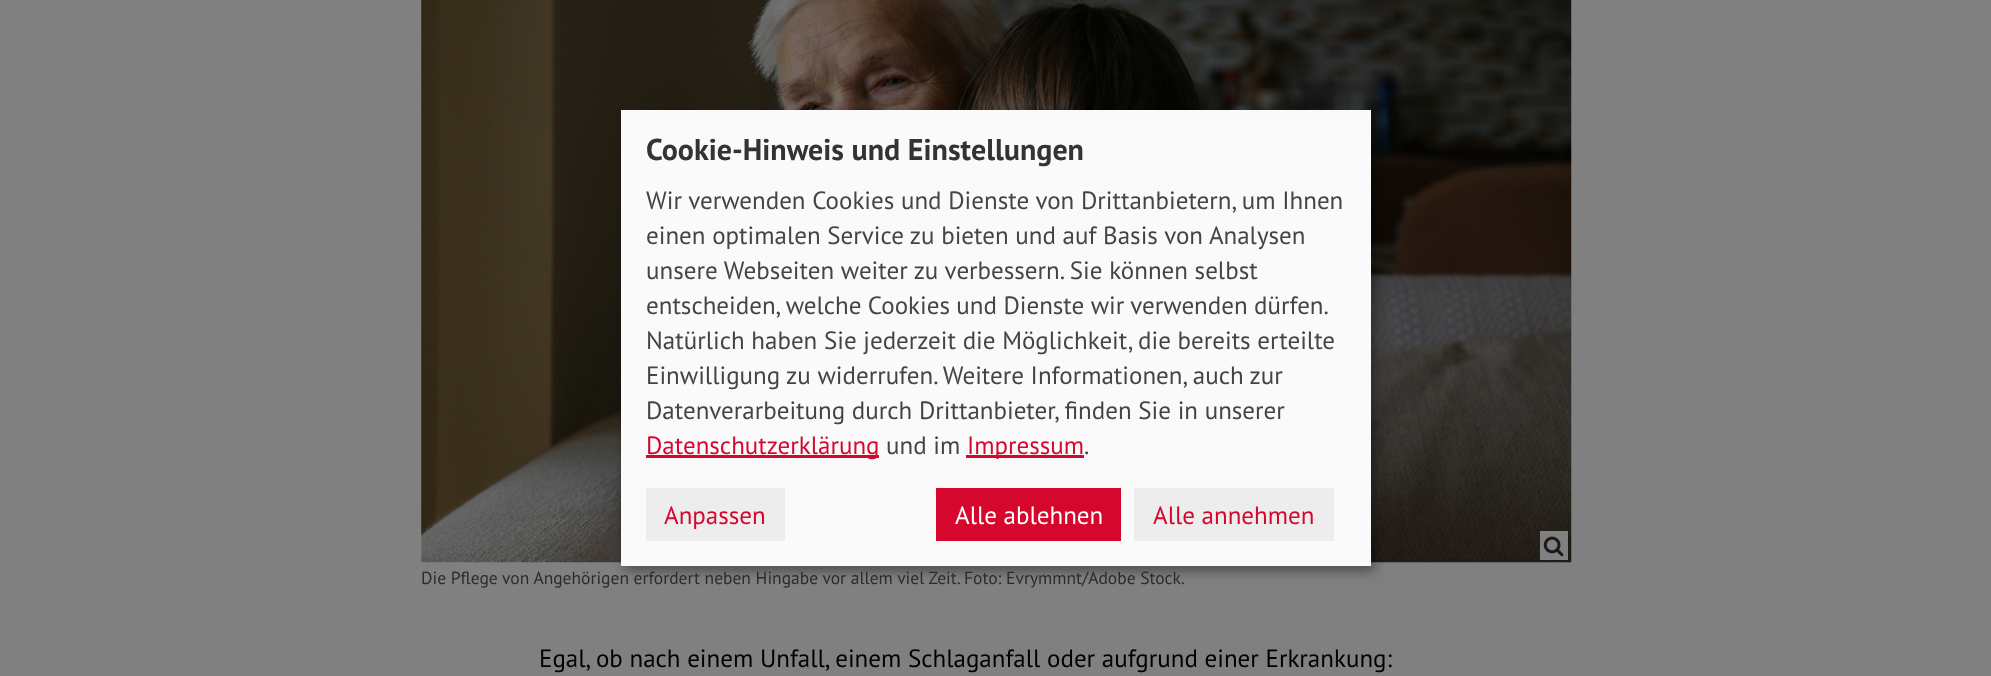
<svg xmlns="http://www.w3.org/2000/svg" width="1991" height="676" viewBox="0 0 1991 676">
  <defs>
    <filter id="blur1" x="-50%" y="-200%" width="200%" height="500%"><feGaussianBlur stdDeviation="6"/></filter>
    <filter id="blur2" x="-50%" y="-200%" width="200%" height="500%"><feGaussianBlur stdDeviation="4"/></filter>
  </defs>
  <rect width="100%" height="100%" fill="#808080"/>
  <image x="421" y="0" width="1151" height="563" href="img1.png"/>
  <rect x="628" y="116" width="750" height="457" fill="#000000" fill-opacity="0.19" filter="url(#blur1)"/>
  <rect x="621" y="115" width="750" height="456" fill="#000000" fill-opacity="0.2" filter="url(#blur2)"/>
  <rect x="621" y="110" width="750" height="456" fill="#fafafa"/>
  <text x="646" y="160" font-family="PT Sans" font-size="30" font-weight="bold" fill="#333333">Cookie-Hinweis und Einstellungen</text>
  <text x="646" y="209" font-family="PT Sans" font-size="25" fill="#444444">Wir verwenden Cookies und Dienste von Drittanbietern, um Ihnen</text>
  <text x="646" y="244" font-family="PT Sans" font-size="25" fill="#444444">einen optimalen Service zu bieten und auf Basis von Analysen</text>
  <text x="646" y="279" font-family="PT Sans" font-size="25" fill="#444444">unsere Webseiten weiter zu verbessern. Sie können selbst</text>
  <text x="646" y="314" word-spacing="-0.25" font-family="PT Sans" font-size="25" fill="#444444">entscheiden, welche Cookies und Dienste wir verwenden dürfen.</text>
  <text x="646" y="349" font-family="PT Sans" font-size="25" fill="#444444">Natürlich haben Sie jederzeit die Möglichkeit, die bereits erteilte</text>
  <text x="646" y="384" font-family="PT Sans" font-size="25" fill="#444444">Einwilligung zu widerrufen. Weitere Informationen, auch zur</text>
  <text x="646" y="419" font-family="PT Sans" font-size="25" fill="#444444">Datenverarbeitung durch Drittanbieter, finden Sie in unserer</text>
  <rect x="646" y="455" width="233" height="3" fill="#d5072d"/>
  <text x="646" y="454" font-family="PT Sans" font-size="25" fill="#d5072d">Datenschutzerklärung</text>
  <text x="886" y="454" font-family="PT Sans" font-size="25" fill="#444444">und im</text>
  <rect x="966" y="455" width="118" height="3" fill="#d5072d"/>
  <text x="967" y="454" font-family="PT Sans" font-size="25" fill="#d5072d">Impressum</text>
  <text x="1084" y="454" font-family="PT Sans" font-size="25" fill="#444444">.</text>
  <rect x="646" y="488" width="139" height="53" fill="#ededed"/>
  <text x="664" y="524" font-family="PT Sans" font-size="25" fill="#d5072d">Anpassen</text>
  <rect x="936" y="488" width="185" height="53" fill="#d5072d"/>
  <text x="955" y="524" font-family="PT Sans" font-size="25" fill="#ffffff">Alle ablehnen</text>
  <rect x="1134" y="488" width="200" height="53" fill="#ededed"/>
  <text x="1153" y="524" font-family="PT Sans" font-size="25" fill="#d5072d">Alle annehmen</text>
  <rect x="1540" y="531" width="28" height="29" fill="#808080"/>
  <image x="1543" y="536" width="21" height="21" href="img2.png"/>
  <text x="421" y="584" font-family="PT Sans" font-size="17.5" fill="#2b2b2b">Die Pflege von Angehörigen erfordert neben Hingabe vor allem viel Zeit. Foto: Evrymmnt/Adobe Stock.</text>
  <text x="539" y="667" font-family="PT Sans" font-size="25" fill="#000000">Egal, ob nach einem Unfall, einem Schlaganfall oder aufgrund einer Erkrankung:</text>
</svg>
